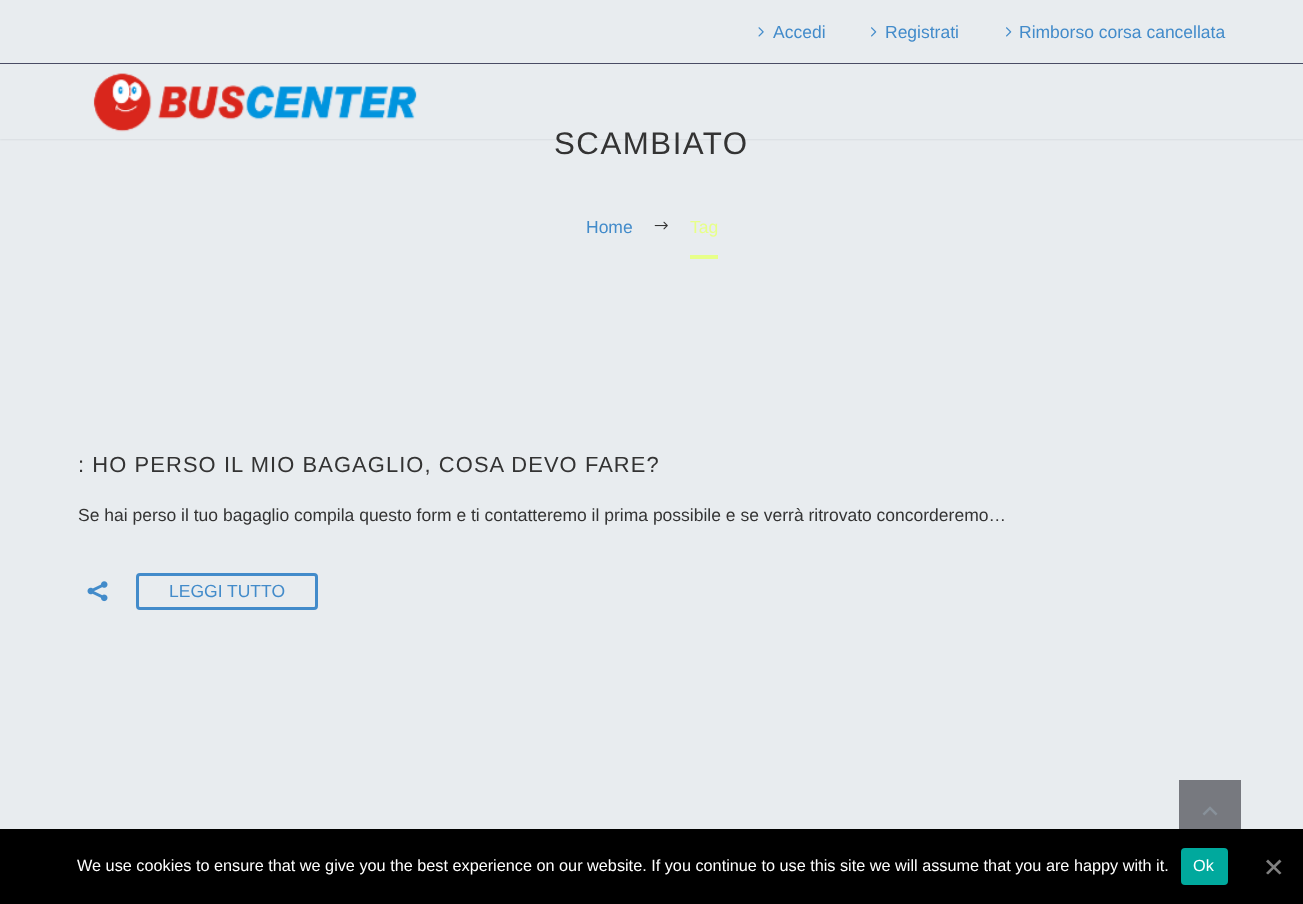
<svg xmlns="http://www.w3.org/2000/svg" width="1303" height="904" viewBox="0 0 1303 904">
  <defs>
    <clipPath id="clip1"><path d="M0 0H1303V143H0ZM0 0H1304V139H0Z" clip-rule="evenodd"/></clipPath>
    <filter id="blur1" x="-50%" y="-200%" width="200%" height="500%"><feGaussianBlur stdDeviation="1"/></filter>
  </defs>
  <rect width="100%" height="100%" fill="#e8ecef"/>
  <g clip-path="url(#clip1)">
    <rect x="0" y="0" width="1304" height="139" fill="#384554" fill-opacity="0.2" filter="url(#blur1)"/>
  </g>
  <rect x="0" y="63" width="1303" height="1" fill="#494c64"/>
  <image x="758" y="27" width="6" height="10" href="img1.png"/>
  <text x="773" y="38" font-family="Liberation Sans" font-size="17.5" fill="#428bca">Accedi</text>
  <image x="871" y="27" width="6" height="10" href="img2.png"/>
  <text x="885" y="38" font-family="Liberation Sans" font-size="17.5" fill="#428bca">Registrati</text>
  <image x="1006" y="27" width="6" height="10" href="img2.png"/>
  <text x="1019" y="38" font-family="Liberation Sans" font-size="17.5" fill="#428bca">Rimborso corsa cancellata</text>
  <image x="93" y="73" width="324" height="59" href="img3.png"/>
  <text x="554" y="154" font-family="Liberation Sans" font-size="31.25" letter-spacing="1.5" fill="#333333">SCAMBIATO</text>
  <text x="586" y="233" font-family="Liberation Sans" font-size="17.5" fill="#428bca">Home</text>
  <image x="654" y="221" width="14" height="9" href="img4.png"/>
  <rect x="690" y="255" width="28" height="4" fill="#e7ff89"/>
  <text x="690" y="233" font-family="Liberation Sans" font-size="17.5" fill="#e7ff89">Tag</text>
  <text x="78" y="472" font-family="Liberation Sans" font-size="21.9" letter-spacing="1.1" fill="#333333">: HO PERSO IL MIO BAGAGLIO, COSA DEVO FARE?</text>
  <text x="78" y="521" font-family="Liberation Sans" font-size="17.5" fill="#333333">Se hai perso il tuo bagaglio compila questo form e ti contatteremo il prima possibile e se verrà ritrovato concorderemo…</text>
  <image x="87" y="581" width="21" height="21" href="img5.png"/>
  <rect x="137.5" y="574.5" width="179" height="34" rx="2.5" fill="none" stroke="#428bca" stroke-width="3"/>
  <text x="169" y="597" font-family="Liberation Sans" font-size="17.5" fill="#428bca">LEGGI TUTTO</text>
  <rect x="1179" y="780" width="62" height="49" fill="#77797f"/>
  <image x="1202" y="806" width="16" height="10" href="img6.png"/>
  <rect x="0" y="829" width="1303" height="75" fill="#000000"/>
  <text x="77" y="871" font-family="Liberation Sans" font-size="16.25" fill="#ffffff">We use cookies to ensure that we give you the best experience on our website. If you continue to use this site we will assume that you are happy with it.</text>
  <rect x="1181" y="848" width="47" height="37" rx="4" fill="#00a99d"/>
  <text x="1193" y="871" font-family="Liberation Sans" font-size="16.25" fill="#ffffff">Ok</text>
  <path d="M1279.5 859.5L1281.5 861.5L1268 874.5L1266 873Z" fill="#808080"/>
  <path d="M1266 861.5L1268 859.5L1281.5 873L1279.5 874.5Z" fill="#808080"/>
</svg>
